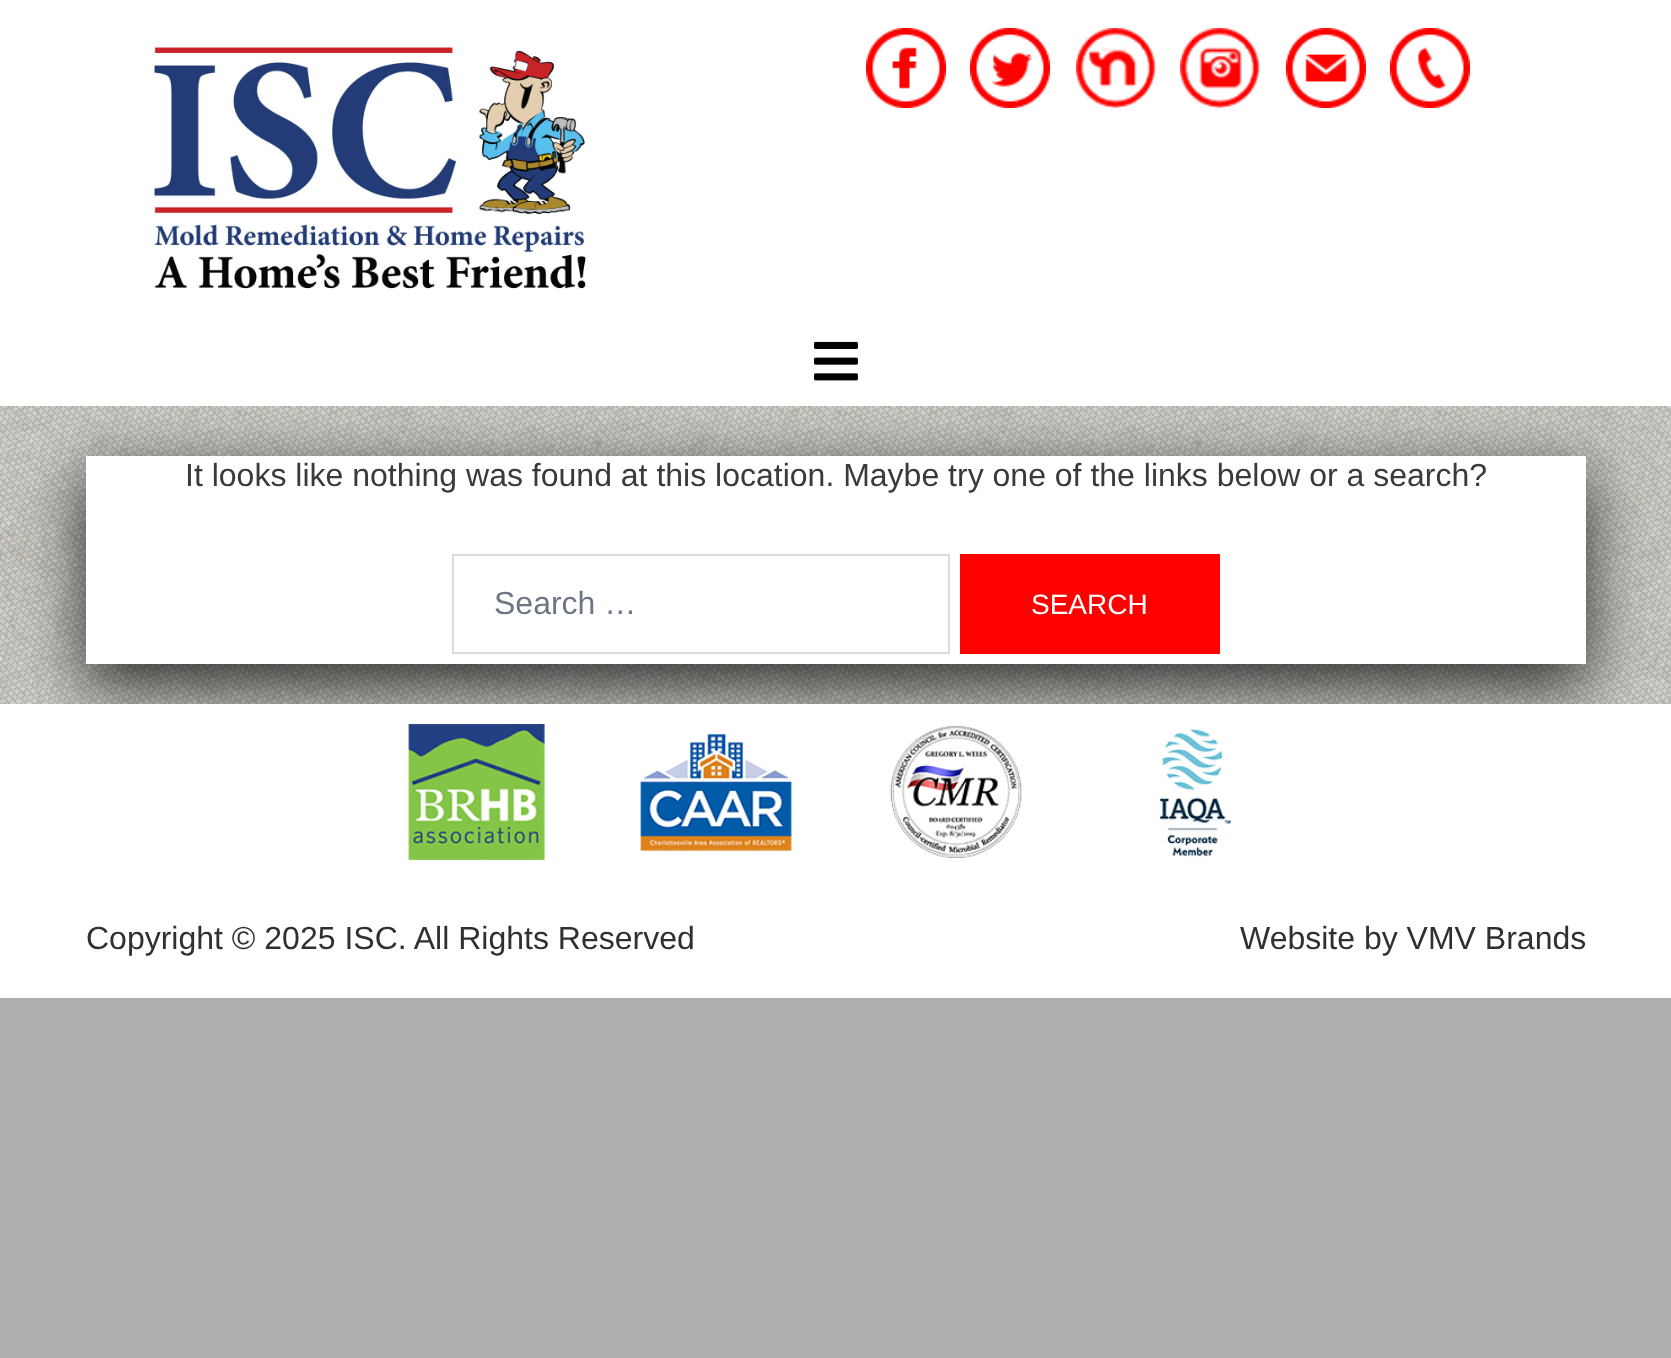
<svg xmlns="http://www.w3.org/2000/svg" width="1671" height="1358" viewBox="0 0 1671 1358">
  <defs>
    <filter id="blur1" x="-50%" y="-200%" width="200%" height="500%"><feGaussianBlur stdDeviation="31"/></filter>
  </defs>
  <rect width="100%" height="100%" fill="#afafaf"/>
  <rect x="0" y="0" width="1671" height="406" fill="#ffffff"/>
  <image x="153" y="47" width="433" height="242" href="img1.png"/>
  <image x="866" y="28" width="80" height="80" href="img2.png"/>
  <image x="970" y="28" width="80" height="80" href="img3.png"/>
  <image x="1076" y="28" width="80" height="80" href="img4.png"/>
  <image x="1180" y="28" width="80" height="80" href="img5.png"/>
  <image x="1286" y="28" width="80" height="80" href="img6.png"/>
  <image x="1390" y="28" width="80" height="80" href="img7.png"/>
  <image x="0" y="406" width="1671" height="298" href="img9.png"/>
  <rect x="84" y="474" width="1504" height="212" fill="#000000" fill-opacity="0.75" filter="url(#blur1)"/>
  <image x="814" y="341" width="44" height="40" href="img8.png"/>
  <rect x="86" y="456" width="1500" height="208" fill="#ffffff"/>
  <text x="185" y="486" font-family="Liberation Sans" font-size="32" fill="#3a3a3a">It looks like nothing was found at this location. Maybe try one of the links below or a search?</text>
  <rect x="453" y="555" width="496" height="98" fill="none" stroke="#dbdbdb" stroke-width="2"/>
  <text x="494" y="614" font-family="Liberation Sans" font-size="32" fill="#6d7685">Search …</text>
  <rect x="960" y="554" width="260" height="100" fill="#ff0000"/>
  <text x="1031" y="614" font-family="Liberation Sans" font-size="28" fill="#ffffff">SEARCH</text>
  <rect x="0" y="704" width="1671" height="294" fill="#ffffff"/>
  <image x="408" y="724" width="137" height="136" href="img10.png"/>
  <image x="640" y="734" width="152" height="117" href="img11.png"/>
  <image x="890" y="726" width="132" height="132" href="img12.png"/>
  <image x="1160" y="728" width="72" height="129" href="img13.png"/>
  <text x="86" y="949" font-family="Liberation Sans" font-size="32" fill="#303030">Copyright © 2025 ISC. All Rights Reserved</text>
  <text x="1240" y="949" font-family="Liberation Sans" font-size="32" fill="#303030">Website by VMV Brands</text>
</svg>
